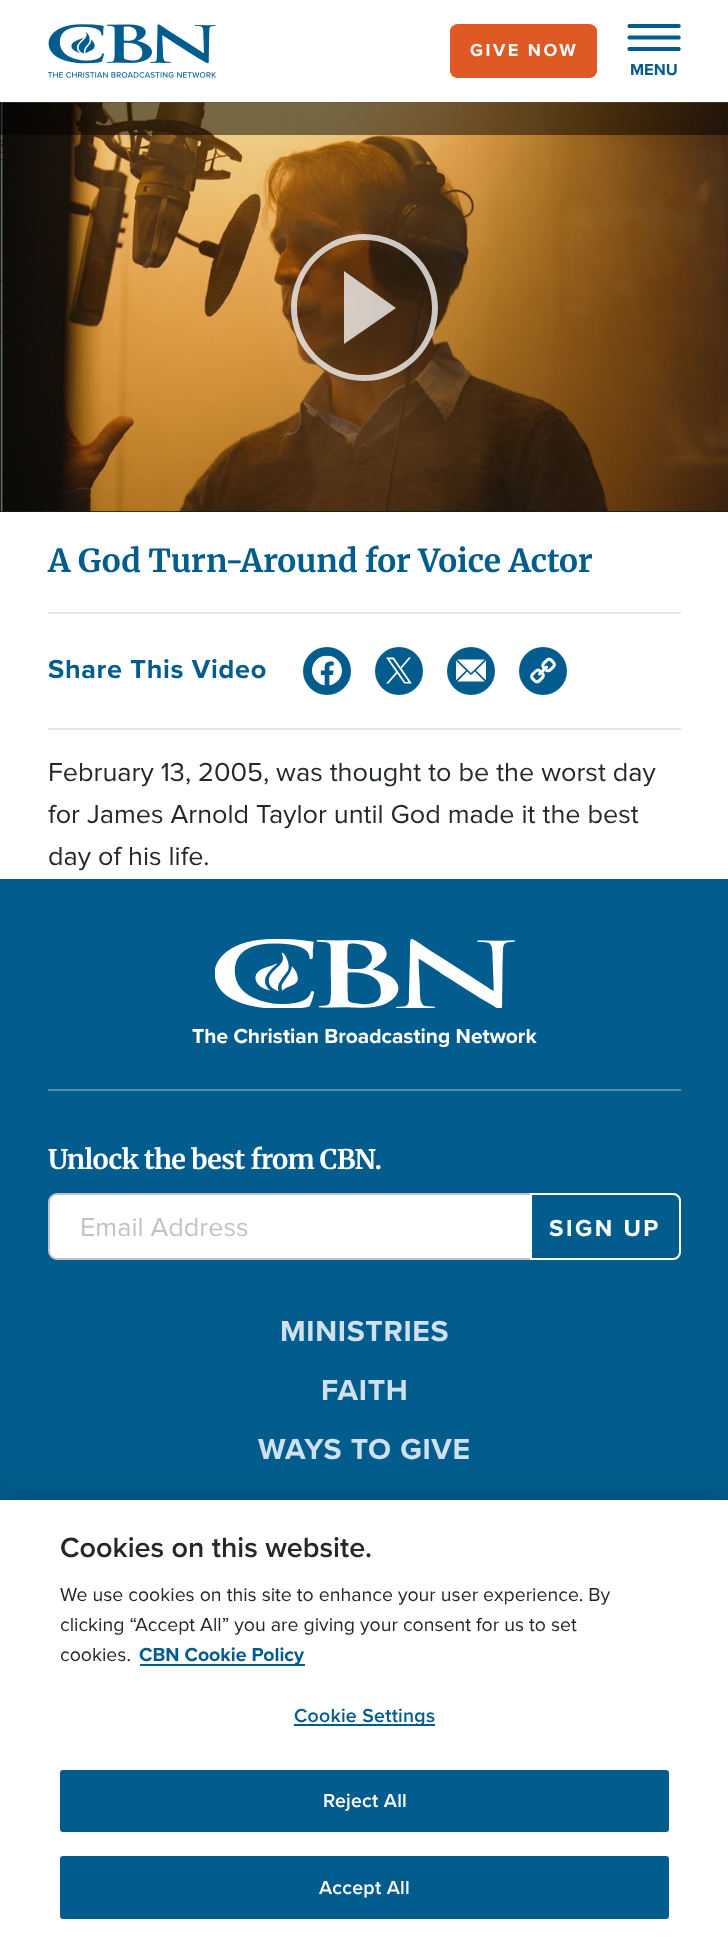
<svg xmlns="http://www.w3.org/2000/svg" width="728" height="1942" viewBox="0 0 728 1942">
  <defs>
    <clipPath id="clip1"><rect x="450" y="24" width="147" height="54" rx="8"/></clipPath>
    <filter id="blur1" x="-50%" y="-200%" width="200%" height="500%"><feGaussianBlur stdDeviation="13.5"/></filter>
  </defs>
  <rect width="100%" height="100%" fill="#ffffff"/>
  <image x="48" y="24" width="168" height="54" href="img1.png"/>
  <g clip-path="url(#clip1)">
    <rect x="450" y="26" width="147" height="51" fill="#de5924"/>
  </g>
  <rect x="451" y="25" width="145" height="52" rx="7" fill="none" stroke="#de5924" stroke-width="2"/>
  <text x="470" y="56" font-family="Proxima Nova" font-size="18" font-weight="bold" letter-spacing="2.5" fill="#ffffff">GIVE NOW</text>
  <image x="627" y="24" width="54" height="27" href="img2.png"/>
  <text x="630" y="75" font-family="Proxima Nova" font-size="16.5" font-weight="bold" fill="#025c8d">MENU</text>
  <rect x="0" y="102" width="728" height="410" fill="#151b17"/>
  <image x="1" y="102" width="727" height="410" href="img3.png"/>
  <rect x="0" y="102" width="728" height="33" fill="#000000" fill-opacity="0.5"/>
  <circle cx="364.5" cy="307.5" r="73.5" fill="#000000" fill-opacity="0.09"/>
  <path d="M364 381C324 381 291 348 291 308C291 283 304 260 323 247C334 239 349 234 364 234C405 234 438 267 438 308C438 323 433 338 425 349C412 368 389 381 364 381ZM364 240C402 240 432 270 432 308C432 345 402 375 364 375C327 375 297 345 297 308C297 270 327 240 364 240ZM396 308L344 271V344Z" fill="#ffffff" fill-opacity="0.75" fill-rule="evenodd"/>
  <text x="48" y="572" font-family="Merriweather" font-size="31.7" font-weight="bold" fill="#025c8d">A God Turn-Around for Voice Actor</text>
  <rect x="48" y="612" width="633" height="2" fill="#e6e6e6"/>
  <rect x="48" y="728" width="633" height="2" fill="#e6e6e6"/>
  <text x="48" y="678" font-family="Proxima Nova" font-size="27" font-weight="bold" letter-spacing="0.7" fill="#025c8d">Share This Video</text>
  <circle cx="327" cy="671" r="24" fill="#025c8d"/>
  <image x="312" y="655" width="30" height="31" href="img4.png"/>
  <circle cx="399" cy="671" r="24" fill="#025c8d"/>
  <image x="386" y="657" width="26" height="27" href="img5.png"/>
  <circle cx="471" cy="671" r="24" fill="#025c8d"/>
  <image x="456" y="659" width="30" height="23" href="img6.png"/>
  <circle cx="543" cy="671" r="24" fill="#025c8d"/>
  <image x="530" y="657" width="26" height="27" href="img7.png"/>
  <text x="48" y="781" font-family="Proxima Nova" font-size="27" fill="#25282a">February 13, 2005, was thought to be the worst day</text>
  <text x="48" y="823" font-family="Proxima Nova" font-size="27" fill="#25282a">for James Arnold Taylor until God made it the best</text>
  <text x="48" y="865" font-family="Proxima Nova" font-size="27" fill="#25282a">day of his life.</text>
  <rect x="0" y="879" width="728" height="621" fill="#025c8d"/>
  <rect x="48" y="1089" width="633" height="2" fill="#4e8daf"/>
  <image x="215" y="939" width="300" height="69" href="img8.png"/>
  <text x="192" y="1043" font-family="Proxima Nova" font-size="21" font-weight="bold" fill="#ffffff">The Christian Broadcasting Network</text>
  <text x="48" y="1169" font-family="Merriweather" font-size="27" font-weight="bold" letter-spacing="-0.7" fill="#ffffff">Unlock the best from CBN.</text>
  <rect x="49" y="1194" width="631" height="65" rx="8" fill="#ffffff" stroke="#c3c3c3" stroke-width="2"/>
  <text x="80" y="1236" font-family="Proxima Nova" font-size="27" fill="#c3c3c3">Email Address</text>
  <path d="M531 1194H673C677 1194 680 1197 680 1201V1252C680 1256 677 1259 673 1259H531Z" fill="#025c8d" stroke="#ffffff" stroke-width="2"/>
  <text x="549" y="1236" font-family="Proxima Nova" font-size="24" font-weight="bold" letter-spacing="2.5" fill="#ffffff">SIGN UP</text>
  <text x="280" y="1341" font-family="Proxima Nova" font-size="30" font-weight="bold" letter-spacing="0.7" fill="#cfe1ef">MINISTRIES</text>
  <text x="321" y="1400" font-family="Proxima Nova" font-size="30" font-weight="bold" letter-spacing="0.7" fill="#cfe1ef">FAITH</text>
  <text x="258" y="1459" font-family="Proxima Nova" font-size="30" font-weight="bold" letter-spacing="0.7" fill="#cfe1ef">WAYS TO GIVE</text>
  <rect x="0" y="1500" width="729" height="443" fill="#000000" fill-opacity="0.2" filter="url(#blur1)"/>
  <rect x="0" y="1500" width="728" height="442" fill="#ffffff"/>
  <text x="60" y="1557" font-family="Proxima Nova" font-size="28.75" font-weight="600" fill="#25282a">Cookies on this website.</text>
  <text x="60" y="1601" font-family="Proxima Nova" font-size="19.5" fill="#25282a">We use cookies on this site to enhance your user experience. By</text>
  <text x="60" y="1631" font-family="Proxima Nova" font-size="19.5" fill="#25282a">clicking “Accept All” you are giving your consent for us to set</text>
  <text x="60" y="1661" font-family="Proxima Nova" font-size="19.5" fill="#25282a">cookies.</text>
  <rect x="140" y="1664" width="165" height="2" fill="#025c8d"/>
  <text x="139" y="1661" font-family="Proxima Nova" font-size="19.5" font-weight="bold" fill="#025c8d">CBN Cookie Policy</text>
  <rect x="294" y="1724" width="141" height="2" fill="#025c8d"/>
  <text x="294" y="1722" font-family="Proxima Nova" font-size="19.5" font-weight="600" letter-spacing="0.25" fill="#025c8d">Cookie Settings</text>
  <rect x="61" y="1771" width="607" height="60" rx="2" fill="#025c8d" stroke="#025c8d" stroke-width="2"/>
  <text x="323" y="1807" font-family="Proxima Nova" font-size="19.5" font-weight="600" letter-spacing="0.25" fill="#ffffff">Reject All</text>
  <rect x="61" y="1857" width="607" height="61" rx="2" fill="#025c8d" stroke="#025c8d" stroke-width="2"/>
  <text x="319" y="1894" font-family="Proxima Nova" font-size="19.5" font-weight="600" letter-spacing="0.25" fill="#ffffff">Accept All</text>
</svg>
